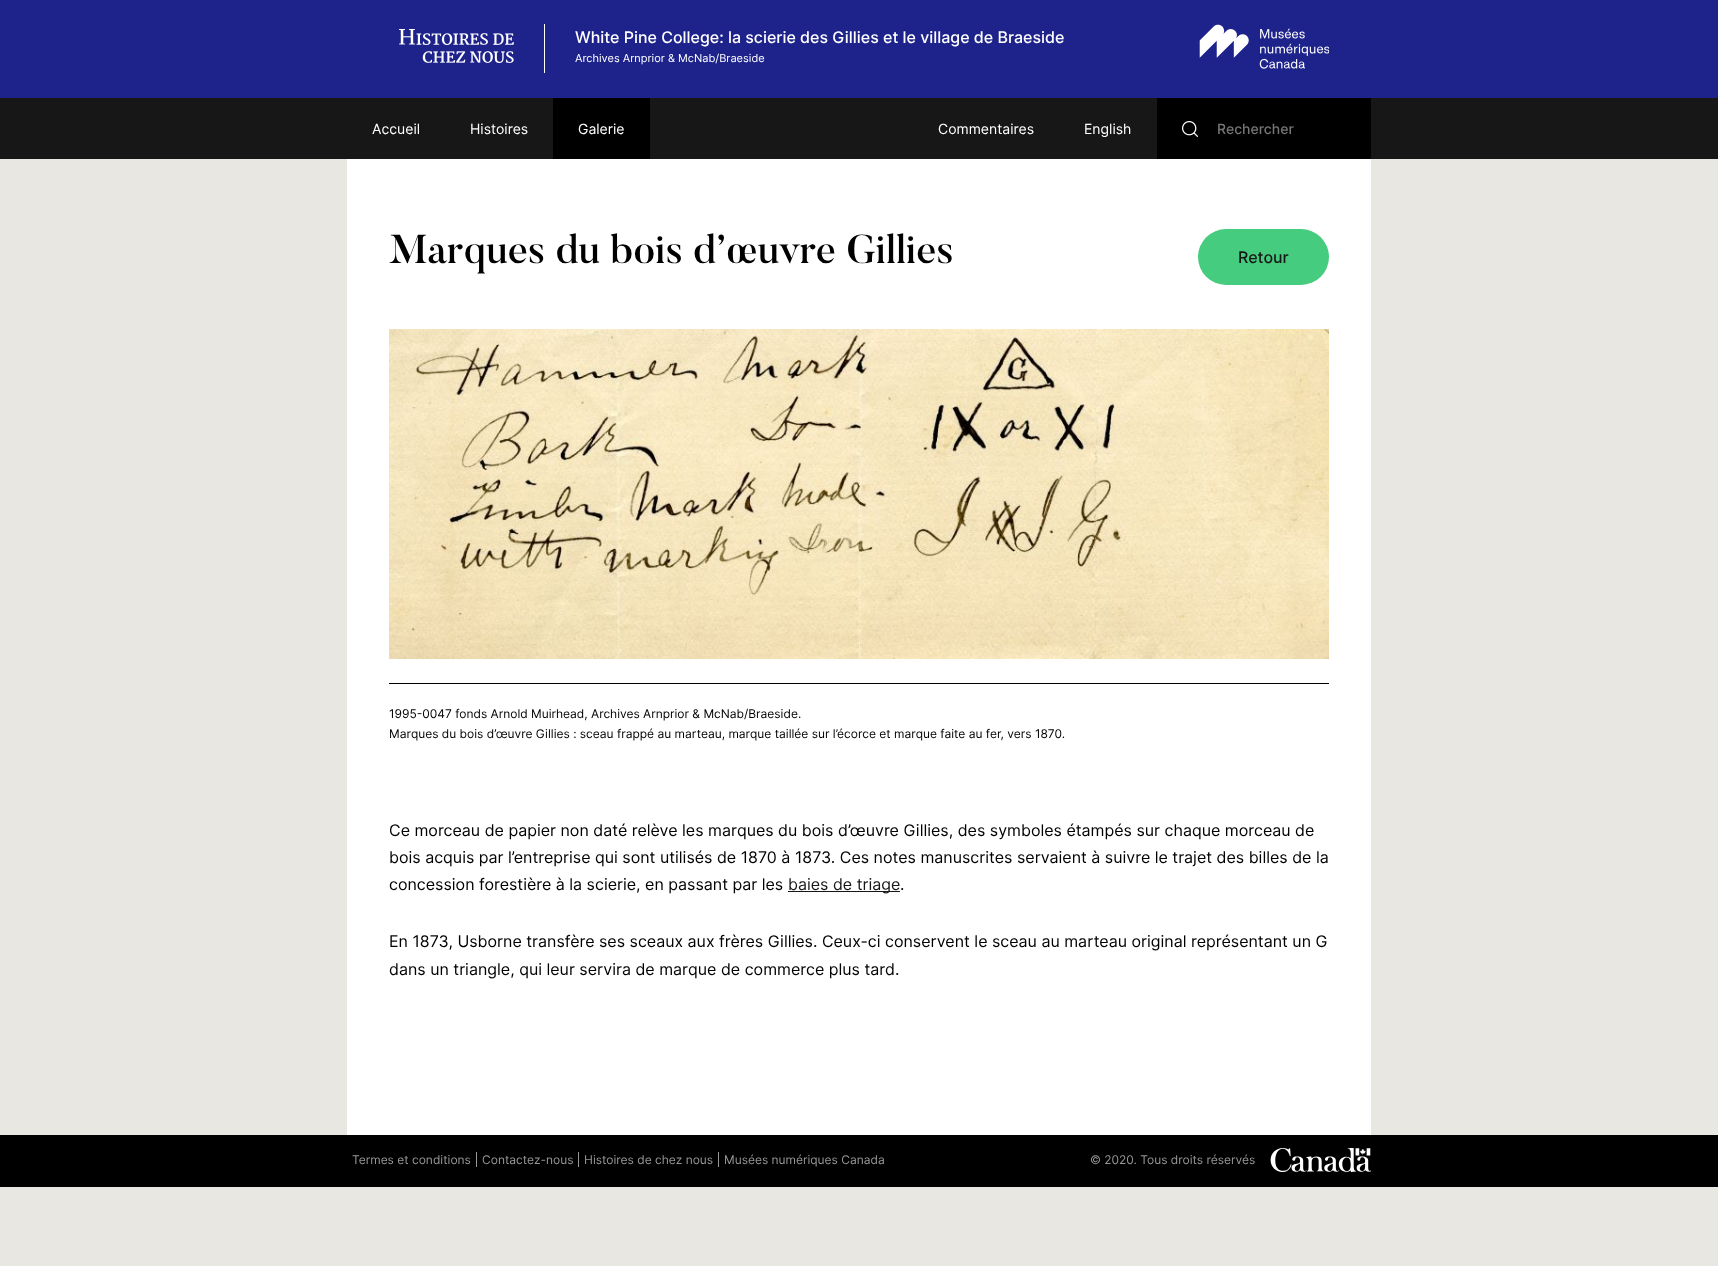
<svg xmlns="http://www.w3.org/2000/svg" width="1718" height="1266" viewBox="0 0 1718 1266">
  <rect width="100%" height="100%" fill="#e8e7e2"/>
  <rect x="0" y="0" width="1718" height="98" fill="#1e238b"/>
  <rect x="544" y="24" width="1" height="49" fill="#ffffff"/>
  <image x="399" y="29" width="115" height="34" href="img1.png"/>
  <image x="1199" y="24" width="130" height="45" href="img2.png"/>
  <text x="575" y="43" font-family="Inter" font-size="16" font-weight="500" fill="#ffffff">White Pine College: la scierie des Gillies et le village de Braeside</text>
  <text x="575" y="62" font-family="Inter" font-size="11" fill="#ffffff">Archives Arnprior &amp; McNab/Braeside</text>
  <rect x="0" y="98" width="1718" height="61" fill="#171717"/>
  <text x="372" y="134" font-family="Inter" font-size="14" fill="#ffffff">Accueil</text>
  <text x="470" y="134" font-family="Inter" font-size="14" fill="#ffffff">Histoires</text>
  <rect x="553" y="98" width="97" height="61" fill="#000000"/>
  <text x="578" y="134" font-family="Inter" font-size="14" fill="#ffffff">Galerie</text>
  <text x="938" y="134" font-family="Inter" font-size="14" fill="#ffffff">Commentaires</text>
  <text x="1084" y="134" font-family="Inter" font-size="14" fill="#ffffff">English</text>
  <rect x="1157" y="98" width="214" height="61" fill="#000000"/>
  <image x="1182" y="121" width="16" height="16" href="img3.png"/>
  <text x="1217" y="134" font-family="Inter" font-size="14" font-weight="500" fill="#757575">Rechercher</text>
  <rect x="347" y="159" width="1024" height="976" fill="#ffffff"/>
  <text x="389" y="263" font-family="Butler" font-size="40" font-weight="500" fill="#000000">Marques du bois d’œuvre Gillies</text>
  <rect x="1198" y="229" width="131" height="56" rx="28" fill="#46cc7e"/>
  <text x="1238" y="263" font-family="Inter" font-size="16" font-weight="500" fill="#171717">Retour</text>
  <image x="389" y="329" width="940" height="330" href="img4.png"/>
  <rect x="389" y="683" width="940" height="1" fill="#000000"/>
  <text x="389" y="718" font-family="Inter" font-size="12" fill="#000000">1995-0047 fonds Arnold Muirhead, Archives Arnprior &amp; McNab/Braeside.</text>
  <text x="389" y="738" font-family="Inter" font-size="12" fill="#000000">Marques du bois d’œuvre Gillies : sceau frappé au marteau, marque taillée sur l’écorce et marque faite au fer, vers 1870.</text>
  <text x="389" y="836" font-family="Inter" font-size="16" fill="#000000">Ce morceau de papier non daté relève les marques du bois d’œuvre Gillies, des symboles étampés sur chaque morceau de</text>
  <text x="389" y="863" font-family="Inter" font-size="16" fill="#000000">bois acquis par l’entreprise qui sont utilisés de 1870 à 1873. Ces notes manuscrites servaient à suivre le trajet des billes de la</text>
  <text x="389" y="890" font-family="Inter" font-size="16" fill="#000000">concession forestière à la scierie, en passant par les</text>
  <rect x="788" y="891" width="112" height="1" fill="#171717"/>
  <text x="788" y="890" font-family="Inter" font-size="16" fill="#171717">baies de triage</text>
  <text x="900" y="890" font-family="Inter" font-size="16" fill="#000000">.</text>
  <text x="389" y="947" font-family="Inter" font-size="16" fill="#000000">En 1873, Usborne transfère ses sceaux aux frères Gillies. Ceux-ci conservent le sceau au marteau original représentant un G</text>
  <text x="389" y="975" font-family="Inter" font-size="16" fill="#000000">dans un triangle, qui leur servira de marque de commerce plus tard.</text>
  <rect x="0" y="1135" width="1718" height="52" fill="#000000"/>
  <text x="352" y="1164" font-family="Inter" font-size="12" fill="#979797">Termes et conditions</text>
  <rect x="476" y="1152" width="1" height="15" fill="#979797"/>
  <text x="482" y="1164" font-family="Inter" font-size="12" fill="#979797">Contactez-nous</text>
  <rect x="578" y="1152" width="1" height="15" fill="#979797"/>
  <text x="584" y="1164" font-family="Inter" font-size="12" fill="#979797">Histoires de chez nous</text>
  <rect x="718" y="1152" width="1" height="15" fill="#979797"/>
  <text x="724" y="1164" font-family="Inter" font-size="12" fill="#979797">Musées numériques Canada</text>
  <text x="1090" y="1164" font-family="Inter" font-size="12" fill="#979797">© 2020. Tous droits réservés</text>
  <image x="1270" y="1148" width="101" height="24" href="img5.png"/>
</svg>
